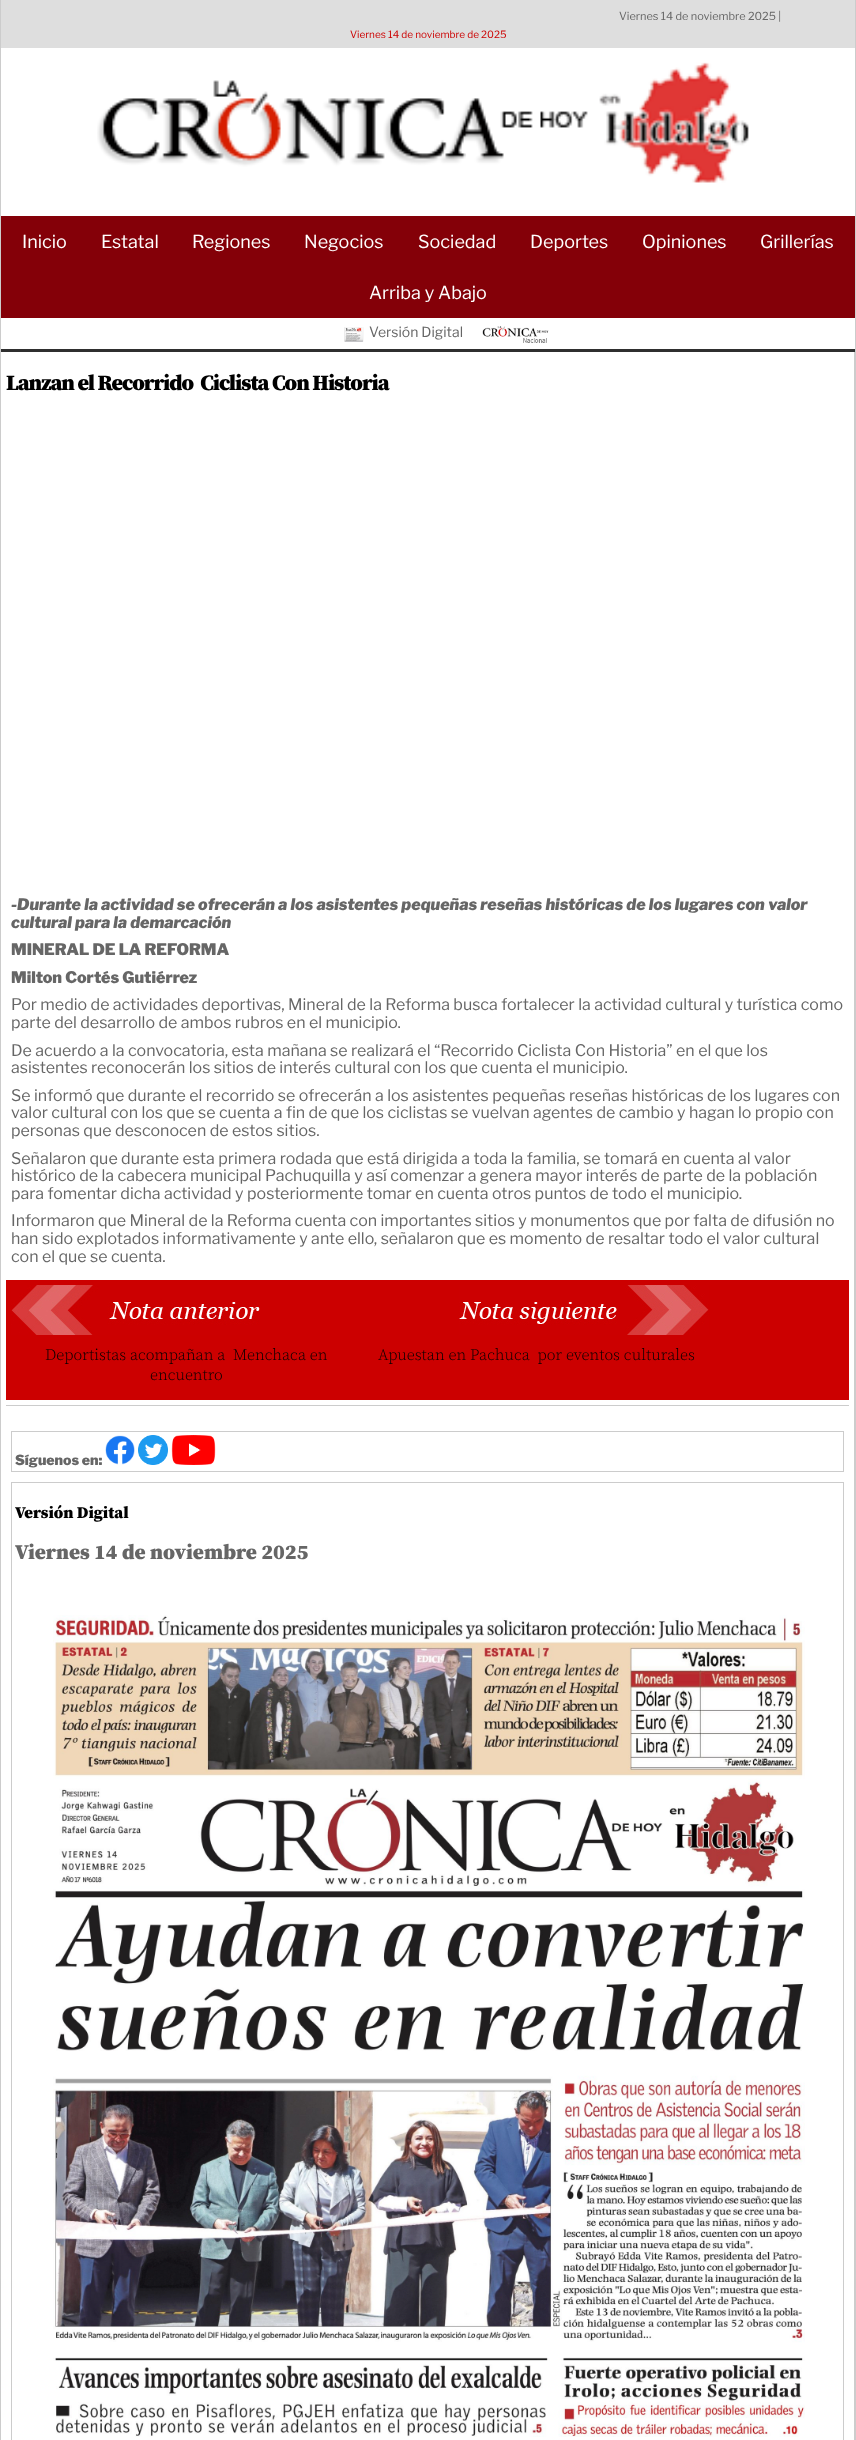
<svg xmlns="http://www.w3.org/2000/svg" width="856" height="2440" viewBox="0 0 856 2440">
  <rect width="100%" height="100%" fill="#ffffff"/>
  <rect x="855" y="0" width="1" height="2440" fill="#cccccc"/>
  <rect x="0" y="0" width="1" height="2440" fill="#cccccc"/>
  <rect x="1" y="0" width="854" height="48" fill="#dedede"/>
  <text x="619" y="20" font-family="Libre Franklin" font-size="11" fill="#666666">Viernes 14 de noviembre 2025 |</text>
  <text x="350" y="38" font-family="Libre Franklin" font-size="10" fill="#cc0000">Viernes 14 de noviembre de 2025</text>
  <image x="97" y="62" width="652" height="121" href="img1.png"/>
  <rect x="1" y="216" width="854" height="102" fill="#840008"/>
  <text x="22" y="248" font-family="Libre Franklin" font-size="18" fill="#ffffff">Inicio</text>
  <text x="101" y="248" font-family="Libre Franklin" font-size="18" fill="#ffffff">Estatal</text>
  <text x="192" y="248" font-family="Libre Franklin" font-size="18" fill="#ffffff">Regiones</text>
  <text x="304" y="248" font-family="Libre Franklin" font-size="18" fill="#ffffff">Negocios</text>
  <text x="418" y="248" font-family="Libre Franklin" font-size="18" fill="#ffffff">Sociedad</text>
  <text x="530" y="248" font-family="Libre Franklin" font-size="18" fill="#ffffff">Deportes</text>
  <text x="642" y="248" font-family="Libre Franklin" font-size="18" fill="#ffffff">Opiniones</text>
  <text x="760" y="248" font-family="Libre Franklin" font-size="18" fill="#ffffff">Grillerías</text>
  <text x="369" y="299" font-family="Libre Franklin" font-size="18" fill="#ffffff">Arriba y Abajo</text>
  <rect x="1" y="349" width="854" height="3" fill="#2f2f2f"/>
  <image x="344" y="327" width="20" height="15" href="img2.png"/>
  <text x="369" y="337" font-family="Libre Franklin" font-size="14" fill="#666666">Versión Digital</text>
  <image x="482" y="326" width="67" height="17" href="img3.png"/>
  <rect x="854" y="352" width="1" height="2088" fill="#cccccc"/>
  <rect x="6" y="1405" width="843" height="1" fill="#cccccc"/>
  <text x="6" y="390" font-family="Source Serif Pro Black" font-size="22" font-weight="900" letter-spacing="-1" fill="#000000" xml:space="preserve">Lanzan el Recorrido  Ciclista Con Historia</text>
  <text x="11" y="910" font-family="Libre Franklin" font-size="16" font-weight="900" font-style="italic" fill="#666666">-Durante la actividad se ofrecerán a los asistentes pequeñas reseñas históricas de los lugares con valor</text>
  <text x="11" y="928" font-family="Libre Franklin" font-size="16" font-weight="900" font-style="italic" fill="#666666">cultural para la demarcación</text>
  <text x="11" y="955" font-family="Libre Franklin" font-size="16" font-weight="900" fill="#666666">MINERAL DE LA REFORMA</text>
  <text x="11" y="983" font-family="Libre Franklin" font-size="16" font-weight="900" fill="#666666">Milton Cortés Gutiérrez</text>
  <text x="11" y="1010" font-family="Libre Franklin" font-size="16" fill="#666666">Por medio de actividades deportivas, Mineral de la Reforma busca fortalecer la actividad cultural y turística como</text>
  <text x="11" y="1028" font-family="Libre Franklin" font-size="16" fill="#666666">parte del desarrollo de ambos rubros en el municipio.</text>
  <text x="11" y="1056" font-family="Libre Franklin" font-size="16" fill="#666666">De acuerdo a la convocatoria, esta mañana se realizará el “Recorrido Ciclista Con Historia” en el que los</text>
  <text x="11" y="1073" font-family="Libre Franklin" font-size="16" fill="#666666">asistentes reconocerán los sitios de interés cultural con los que cuenta el municipio.</text>
  <text x="11" y="1101" font-family="Libre Franklin" font-size="16" fill="#666666">Se informó que durante el recorrido se ofrecerán a los asistentes pequeñas reseñas históricas de los lugares con</text>
  <text x="11" y="1118" font-family="Libre Franklin" font-size="16" fill="#666666">valor cultural con los que se cuenta a fin de que los ciclistas se vuelvan agentes de cambio y hagan lo propio con</text>
  <text x="11" y="1136" font-family="Libre Franklin" font-size="16" fill="#666666">personas que desconocen de estos sitios.</text>
  <text x="11" y="1164" font-family="Libre Franklin" font-size="16" fill="#666666">Señalaron que durante esta primera rodada que está dirigida a toda la familia, se tomará en cuenta al valor</text>
  <text x="11" y="1181" font-family="Libre Franklin" font-size="16" fill="#666666">histórico de la cabecera municipal Pachuquilla y así comenzar a genera mayor interés de parte de la población</text>
  <text x="11" y="1199" font-family="Libre Franklin" font-size="16" fill="#666666">para fomentar dicha actividad y posteriormente tomar en cuenta otros puntos de todo el municipio.</text>
  <text x="11" y="1226" font-family="Libre Franklin" font-size="16" fill="#666666">Informaron que Mineral de la Reforma cuenta con importantes sitios y monumentos que por falta de difusión no</text>
  <text x="11" y="1244" font-family="Libre Franklin" font-size="16" fill="#666666">han sido explotados informativamente y ante ello, señalaron que es momento de resaltar todo el valor cultural</text>
  <text x="11" y="1262" font-family="Libre Franklin" font-size="16" fill="#666666">con el que se cuenta.</text>
  <rect x="6" y="1280" width="843" height="120" fill="#cc0000"/>
  <image x="11" y="1285" width="249" height="50" href="img4.png"/>
  <text x="45" y="1360" font-family="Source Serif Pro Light" font-size="16" font-weight="300" fill="#000000" xml:space="preserve">Deportistas acompañan a  Menchaca en</text>
  <text x="150" y="1380" font-family="Source Serif Pro Light" font-size="16" font-weight="300" fill="#000000">encuentro</text>
  <image x="459" y="1285" width="250" height="50" href="img5.png"/>
  <text x="378" y="1360" font-family="Source Serif Pro Light" font-size="16" font-weight="300" fill="#000000" xml:space="preserve">Apuestan en Pachuca  por eventos culturales</text>
  <rect x="11.5" y="1431.5" width="832" height="40" fill="none" stroke="#cccccc"/>
  <text x="15" y="1465" font-family="Libre Franklin" font-size="14" font-weight="900" fill="#666666">Síguenos en:</text>
  <image x="105" y="1435" width="30" height="30" href="img6.png"/>
  <image x="138" y="1435" width="30" height="30" href="img7.png"/>
  <image x="171" y="1435" width="45" height="30" href="img8.png"/>
  <rect x="11.5" y="1482.5" width="832" height="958" fill="none" stroke="#cccccc"/>
  <text x="15" y="1518" font-family="Source Serif Pro Black" font-size="16.5" font-weight="900" fill="#000000">Versión Digital</text>
  <text x="15" y="1559" font-family="Source Serif Pro Black" font-size="21" font-weight="900" fill="#666666">Viernes 14 de noviembre 2025</text>
  <image x="53" y="1615" width="752" height="822" href="img9.png"/>
</svg>
